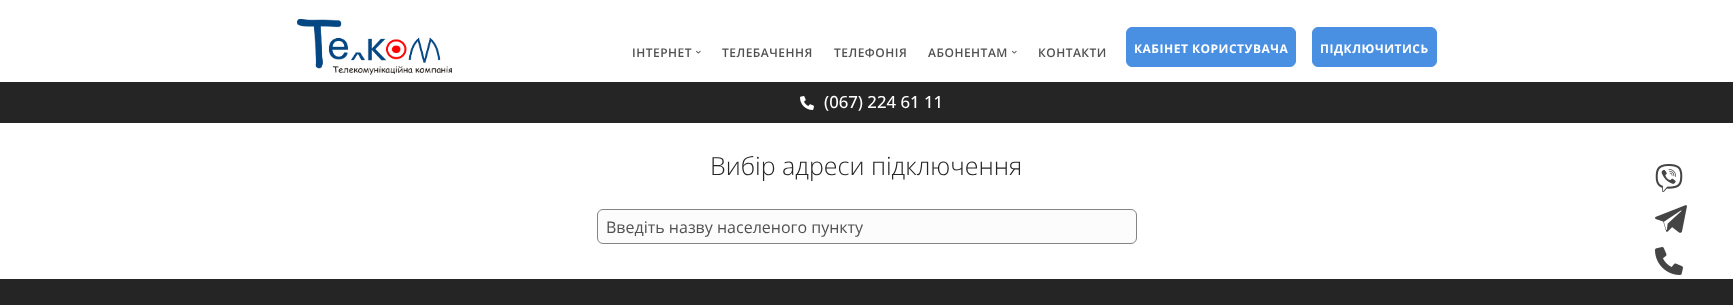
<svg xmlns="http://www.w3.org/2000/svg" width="1733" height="305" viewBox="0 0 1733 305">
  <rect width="100%" height="100%" fill="#ffffff"/>
  <image x="297" y="19" width="155" height="56" href="img1.png"/>
  <text x="632" y="57" font-family="Open Sans" font-size="12" font-weight="600" letter-spacing="0.5" fill="#515151">ІНТЕРНЕТ</text>
  <image x="696" y="50" width="5" height="4" href="img2.png"/>
  <text x="722" y="57" font-family="Open Sans" font-size="12" font-weight="600" letter-spacing="0.5" fill="#515151">ТЕЛЕБАЧЕННЯ</text>
  <text x="834" y="57" font-family="Open Sans" font-size="12" font-weight="600" letter-spacing="0.5" fill="#515151">ТЕЛЕФОНІЯ</text>
  <text x="928" y="57" font-family="Open Sans" font-size="12" font-weight="600" letter-spacing="0.5" fill="#515151">АБОНЕНТАМ</text>
  <image x="1012" y="50" width="5" height="4" href="img2.png"/>
  <text x="1038" y="57" font-family="Open Sans" font-size="12" font-weight="600" letter-spacing="0.5" fill="#515151">КОНТАКТИ</text>
  <rect x="1126.5" y="27.5" width="169" height="39" rx="5.5" fill="#4a90e2" stroke="#4a90e2"/>
  <text x="1134" y="53" font-family="Open Sans" font-size="12" font-weight="bold" letter-spacing="0.5" fill="#ffffff">КАБІНЕТ КОРИСТУВАЧА</text>
  <rect x="1312.5" y="27.5" width="124" height="39" rx="5.5" fill="#4a90e2" stroke="#4a90e2"/>
  <text x="1320" y="53" font-family="Open Sans" font-size="12" font-weight="bold" letter-spacing="0.5" fill="#ffffff">ПІДКЛЮЧИТИСЬ</text>
  <rect x="0" y="82" width="1733" height="41" fill="#252525"/>
  <image x="800" y="96" width="14" height="14" href="img3.png"/>
  <text x="824" y="108" font-family="Open Sans" font-size="16.75" font-weight="500" fill="#ffffff">(067) 224 61 11</text>
  <text x="710" y="175" font-family="Open Sans" font-size="25" font-weight="300" fill="#252525">Вибір адреси підключення</text>
  <rect x="597.5" y="209.5" width="539" height="34" rx="5.5" fill="#fcfcfc" stroke="#848484"/>
  <text x="606" y="233" font-family="Open Sans" font-size="16" fill="#515151">Введіть назву населеного пункту</text>
  <image x="1655" y="164" width="28" height="28" href="img4.png"/>
  <image x="1655" y="205" width="32" height="28" href="img5.png"/>
  <image x="1655" y="247" width="28" height="28" href="img6.png"/>
  <rect x="0" y="279" width="1733" height="26" fill="#252525"/>
</svg>
